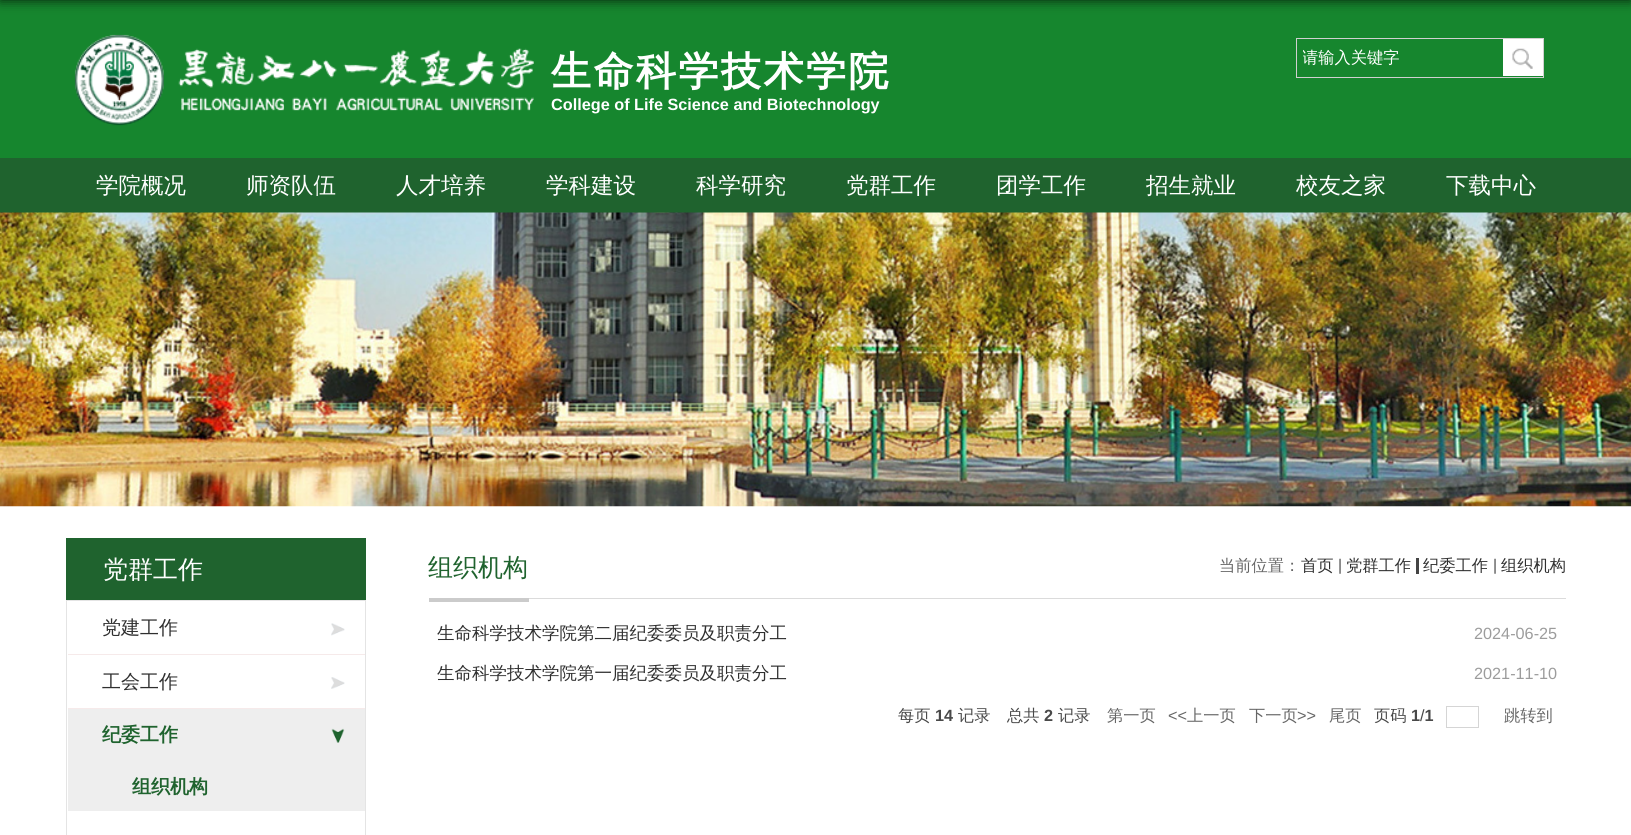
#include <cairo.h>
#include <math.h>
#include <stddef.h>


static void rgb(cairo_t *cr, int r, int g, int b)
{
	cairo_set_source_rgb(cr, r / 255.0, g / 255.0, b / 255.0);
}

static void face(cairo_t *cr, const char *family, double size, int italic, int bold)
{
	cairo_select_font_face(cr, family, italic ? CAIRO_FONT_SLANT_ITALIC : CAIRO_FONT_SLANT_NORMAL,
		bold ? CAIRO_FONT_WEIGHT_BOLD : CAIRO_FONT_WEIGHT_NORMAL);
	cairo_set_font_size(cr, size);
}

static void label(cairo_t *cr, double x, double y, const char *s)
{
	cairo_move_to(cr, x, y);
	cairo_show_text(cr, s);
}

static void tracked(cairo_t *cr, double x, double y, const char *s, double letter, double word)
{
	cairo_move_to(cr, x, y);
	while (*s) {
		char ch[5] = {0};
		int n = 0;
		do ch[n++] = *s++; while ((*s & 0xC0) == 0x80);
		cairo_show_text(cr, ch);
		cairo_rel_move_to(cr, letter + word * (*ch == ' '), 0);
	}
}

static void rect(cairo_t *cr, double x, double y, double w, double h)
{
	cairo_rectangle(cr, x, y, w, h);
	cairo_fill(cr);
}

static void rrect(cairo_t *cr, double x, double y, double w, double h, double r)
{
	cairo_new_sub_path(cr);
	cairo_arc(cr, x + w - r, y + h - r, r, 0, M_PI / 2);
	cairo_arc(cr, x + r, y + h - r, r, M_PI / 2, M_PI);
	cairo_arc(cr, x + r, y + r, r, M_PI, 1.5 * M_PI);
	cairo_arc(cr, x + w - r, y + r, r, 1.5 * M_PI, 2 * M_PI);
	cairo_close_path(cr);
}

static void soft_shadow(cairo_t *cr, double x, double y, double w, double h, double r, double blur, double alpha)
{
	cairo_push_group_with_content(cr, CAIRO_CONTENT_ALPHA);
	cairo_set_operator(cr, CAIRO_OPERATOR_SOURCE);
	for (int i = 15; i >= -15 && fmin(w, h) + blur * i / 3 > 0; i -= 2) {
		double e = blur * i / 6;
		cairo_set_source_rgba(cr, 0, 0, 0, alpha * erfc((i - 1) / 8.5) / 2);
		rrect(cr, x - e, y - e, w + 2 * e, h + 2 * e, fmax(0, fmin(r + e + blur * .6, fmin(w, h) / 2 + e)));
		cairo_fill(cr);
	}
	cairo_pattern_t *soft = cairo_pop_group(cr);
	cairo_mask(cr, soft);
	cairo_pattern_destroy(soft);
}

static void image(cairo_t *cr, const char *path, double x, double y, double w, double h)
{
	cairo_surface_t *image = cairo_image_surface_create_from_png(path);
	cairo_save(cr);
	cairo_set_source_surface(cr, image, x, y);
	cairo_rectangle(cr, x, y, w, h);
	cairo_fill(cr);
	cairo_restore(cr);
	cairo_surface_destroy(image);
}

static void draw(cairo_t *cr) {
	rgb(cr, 255, 255, 255);
	cairo_paint(cr);
	rgb(cr, 22, 134, 46);
	rect(cr, 0, 0, 1631, 158);
	rgb(cr, 0, 0, 0);
	soft_shadow(cr, 0, -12, 1631, 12, 0, 6, 0.8);
	image(cr, "image0.png", 74, 34, 460, 92);
	face(cr, "WenQuanYi Zen Hei", 40, 0, 1);
	rgb(cr, 255, 255, 255);
	tracked(cr, 551, 85, "生命科学技术学院", 2.5, 0);
	face(cr, "Liberation Sans", 16.25, 0, 1);
	label(cr, 551, 110, "College of Life Science and Biotechnology");
	cairo_rectangle(cr, 1296.5, 38.5, 247, 39);
	rgb(cr, 208, 208, 208);
	cairo_set_line_width(cr, 1);
	cairo_stroke(cr);
	cairo_save(cr);
	cairo_rectangle(cr, 1303, 45, 200, 25);
	cairo_clip(cr);
	face(cr, "WenQuanYi Zen Hei Medium", 16.25, 0, 0);
	rgb(cr, 255, 255, 255);
	label(cr, 1302, 63, "请输入关键字");
	cairo_restore(cr);
	rgb(cr, 255, 255, 255);
	rect(cr, 1503, 39, 40, 37);
	image(cr, "image1.png", 1512, 48, 21, 21);
	rgb(cr, 31, 99, 46);
	rect(cr, 0, 158, 1631, 55);
	face(cr, "WenQuanYi Zen Hei Medium", 22.5, 0, 0);
	rgb(cr, 255, 255, 255);
	label(cr, 96, 193, "学院概况");
	label(cr, 246, 193, "师资队伍");
	label(cr, 396, 193, "人才培养");
	label(cr, 546, 193, "学科建设");
	label(cr, 696, 193, "科学研究");
	label(cr, 846, 193, "党群工作");
	label(cr, 996, 193, "团学工作");
	label(cr, 1146, 193, "招生就业");
	label(cr, 1296, 193, "校友之家");
	label(cr, 1446, 193, "下载中心");
	image(cr, "image2.png", 0, 212, 1631, 295);
	rgb(cr, 31, 99, 46);
	rect(cr, 66, 538, 300, 62);
	face(cr, "WenQuanYi Zen Hei Medium", 25, 0, 0);
	rgb(cr, 255, 255, 255);
	label(cr, 103, 578, "党群工作");
	cairo_rectangle(cr, 66.5, 600.5, 299, 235);
	rgb(cr, 228, 228, 228);
	cairo_stroke(cr);
	image(cr, "image3.png", 331, 623, 14, 13);
	rgb(cr, 246, 234, 234);
	rect(cr, 68, 654, 297, 1);
	face(cr, "WenQuanYi Zen Hei Medium", 19, 0, 0);
	rgb(cr, 47, 47, 47);
	label(cr, 102, 634, "党建工作");
	image(cr, "image4.png", 331, 677, 14, 12);
	rgb(cr, 246, 234, 234);
	rect(cr, 68, 708, 297, 1);
	rgb(cr, 47, 47, 47);
	label(cr, 102, 688, "工会工作");
	rgb(cr, 238, 238, 238);
	rect(cr, 68, 709, 297, 102);
	image(cr, "image5.png", 331, 728, 14, 15);
	face(cr, "WenQuanYi Zen Hei", 19, 0, 1);
	rgb(cr, 31, 99, 46);
	label(cr, 102, 741, "纪委工作");
	label(cr, 132, 793, "组织机构");
	rgb(cr, 219, 219, 219);
	rect(cr, 529, 598, 1037, 1);
	rgb(cr, 203, 203, 203);
	rect(cr, 429, 598, 100, 4);
	face(cr, "WenQuanYi Zen Hei Medium", 25, 0, 0);
	rgb(cr, 31, 99, 46);
	label(cr, 428, 576, "组织机构");
	face(cr, "WenQuanYi Zen Hei Medium", 16.25, 0, 0);
	rgb(cr, 102, 102, 102);
	label(cr, 1219, 571, "当前位置：");
	rgb(cr, 47, 47, 47);
	label(cr, 1301, 571, "首页");
	image(cr, "image6.png", 1339, 558, 2, 16);
	label(cr, 1346, 571, "党群工作");
	rgb(cr, 68, 68, 68);
	rect(cr, 1416, 558, 3, 16);
	rgb(cr, 47, 47, 47);
	label(cr, 1423, 571, "纪委工作");
	image(cr, "image6.png", 1494, 558, 2, 16);
	label(cr, 1501, 571, "组织机构");
	face(cr, "WenQuanYi Zen Hei Medium", 17.5, 0, 0);
	label(cr, 437, 639, "生命科学技术学院第二届纪委委员及职责分工");
	face(cr, "Liberation Sans", 16.25, 0, 0);
	rgb(cr, 156, 156, 156);
	label(cr, 1474, 639, "2024-06-25");
	face(cr, "WenQuanYi Zen Hei Medium", 17.5, 0, 0);
	rgb(cr, 47, 47, 47);
	label(cr, 437, 679, "生命科学技术学院第一届纪委委员及职责分工");
	face(cr, "Liberation Sans", 16.25, 0, 0);
	rgb(cr, 156, 156, 156);
	label(cr, 1474, 679, "2021-11-10");
	face(cr, "WenQuanYi Zen Hei Medium", 16.25, 0, 0);
	rgb(cr, 73, 73, 73);
	label(cr, 898, 721, "每页");
	face(cr, "Liberation Sans", 16.25, 0, 1);
	label(cr, 935, 721, "14");
	face(cr, "WenQuanYi Zen Hei Medium", 16.25, 0, 0);
	label(cr, 958, 721, "记录");
	label(cr, 1007, 721, "总共");
	face(cr, "Liberation Sans", 16.25, 0, 1);
	label(cr, 1044, 721, "2");
	face(cr, "WenQuanYi Zen Hei Medium", 16.25, 0, 0);
	label(cr, 1058, 721, "记录");
	rgb(cr, 102, 102, 102);
	label(cr, 1107, 721, "第一页");
	face(cr, "Liberation Sans", 16.25, 0, 0);
	label(cr, 1168, 721, "<<");
	face(cr, "WenQuanYi Zen Hei Medium", 16.25, 0, 0);
	label(cr, 1187, 721, "上一页");
	label(cr, 1249, 721, "下一页");
	face(cr, "Liberation Sans", 16.25, 0, 0);
	label(cr, 1297, 721, ">>");
	face(cr, "WenQuanYi Zen Hei Medium", 16.25, 0, 0);
	label(cr, 1329, 721, "尾页");
	rgb(cr, 73, 73, 73);
	label(cr, 1374, 721, "页码");
	face(cr, "Liberation Sans", 16.25, 0, 1);
	label(cr, 1411, 721, "1 1");
	face(cr, "Liberation Sans", 16.25, 0, 0);
	label(cr, 1420, 721, "/");
	cairo_rectangle(cr, 1446.5, 706.5, 32, 21);
	rgb(cr, 213, 213, 213);
	cairo_stroke(cr);
	face(cr, "WenQuanYi Zen Hei Medium", 16.25, 0, 0);
	rgb(cr, 102, 102, 102);
	label(cr, 1504, 721, "跳转到");
}

int main(void) {
	cairo_surface_t *surface = cairo_image_surface_create(CAIRO_FORMAT_RGB24, 1631, 835);
	cairo_t *cr = cairo_create(surface);
	cairo_font_options_t *options = cairo_font_options_create();
	cairo_font_options_set_hint_metrics(options, CAIRO_HINT_METRICS_OFF);
	cairo_font_options_set_hint_style(options, CAIRO_HINT_STYLE_NONE);
	cairo_set_font_options(cr, options);
	cairo_set_miter_limit(cr, 4);
	draw(cr);
	cairo_surface_write_to_png(surface, "render.png");
	cairo_font_options_destroy(options);
	cairo_destroy(cr);
	cairo_surface_destroy(surface);
	return 0;
}
